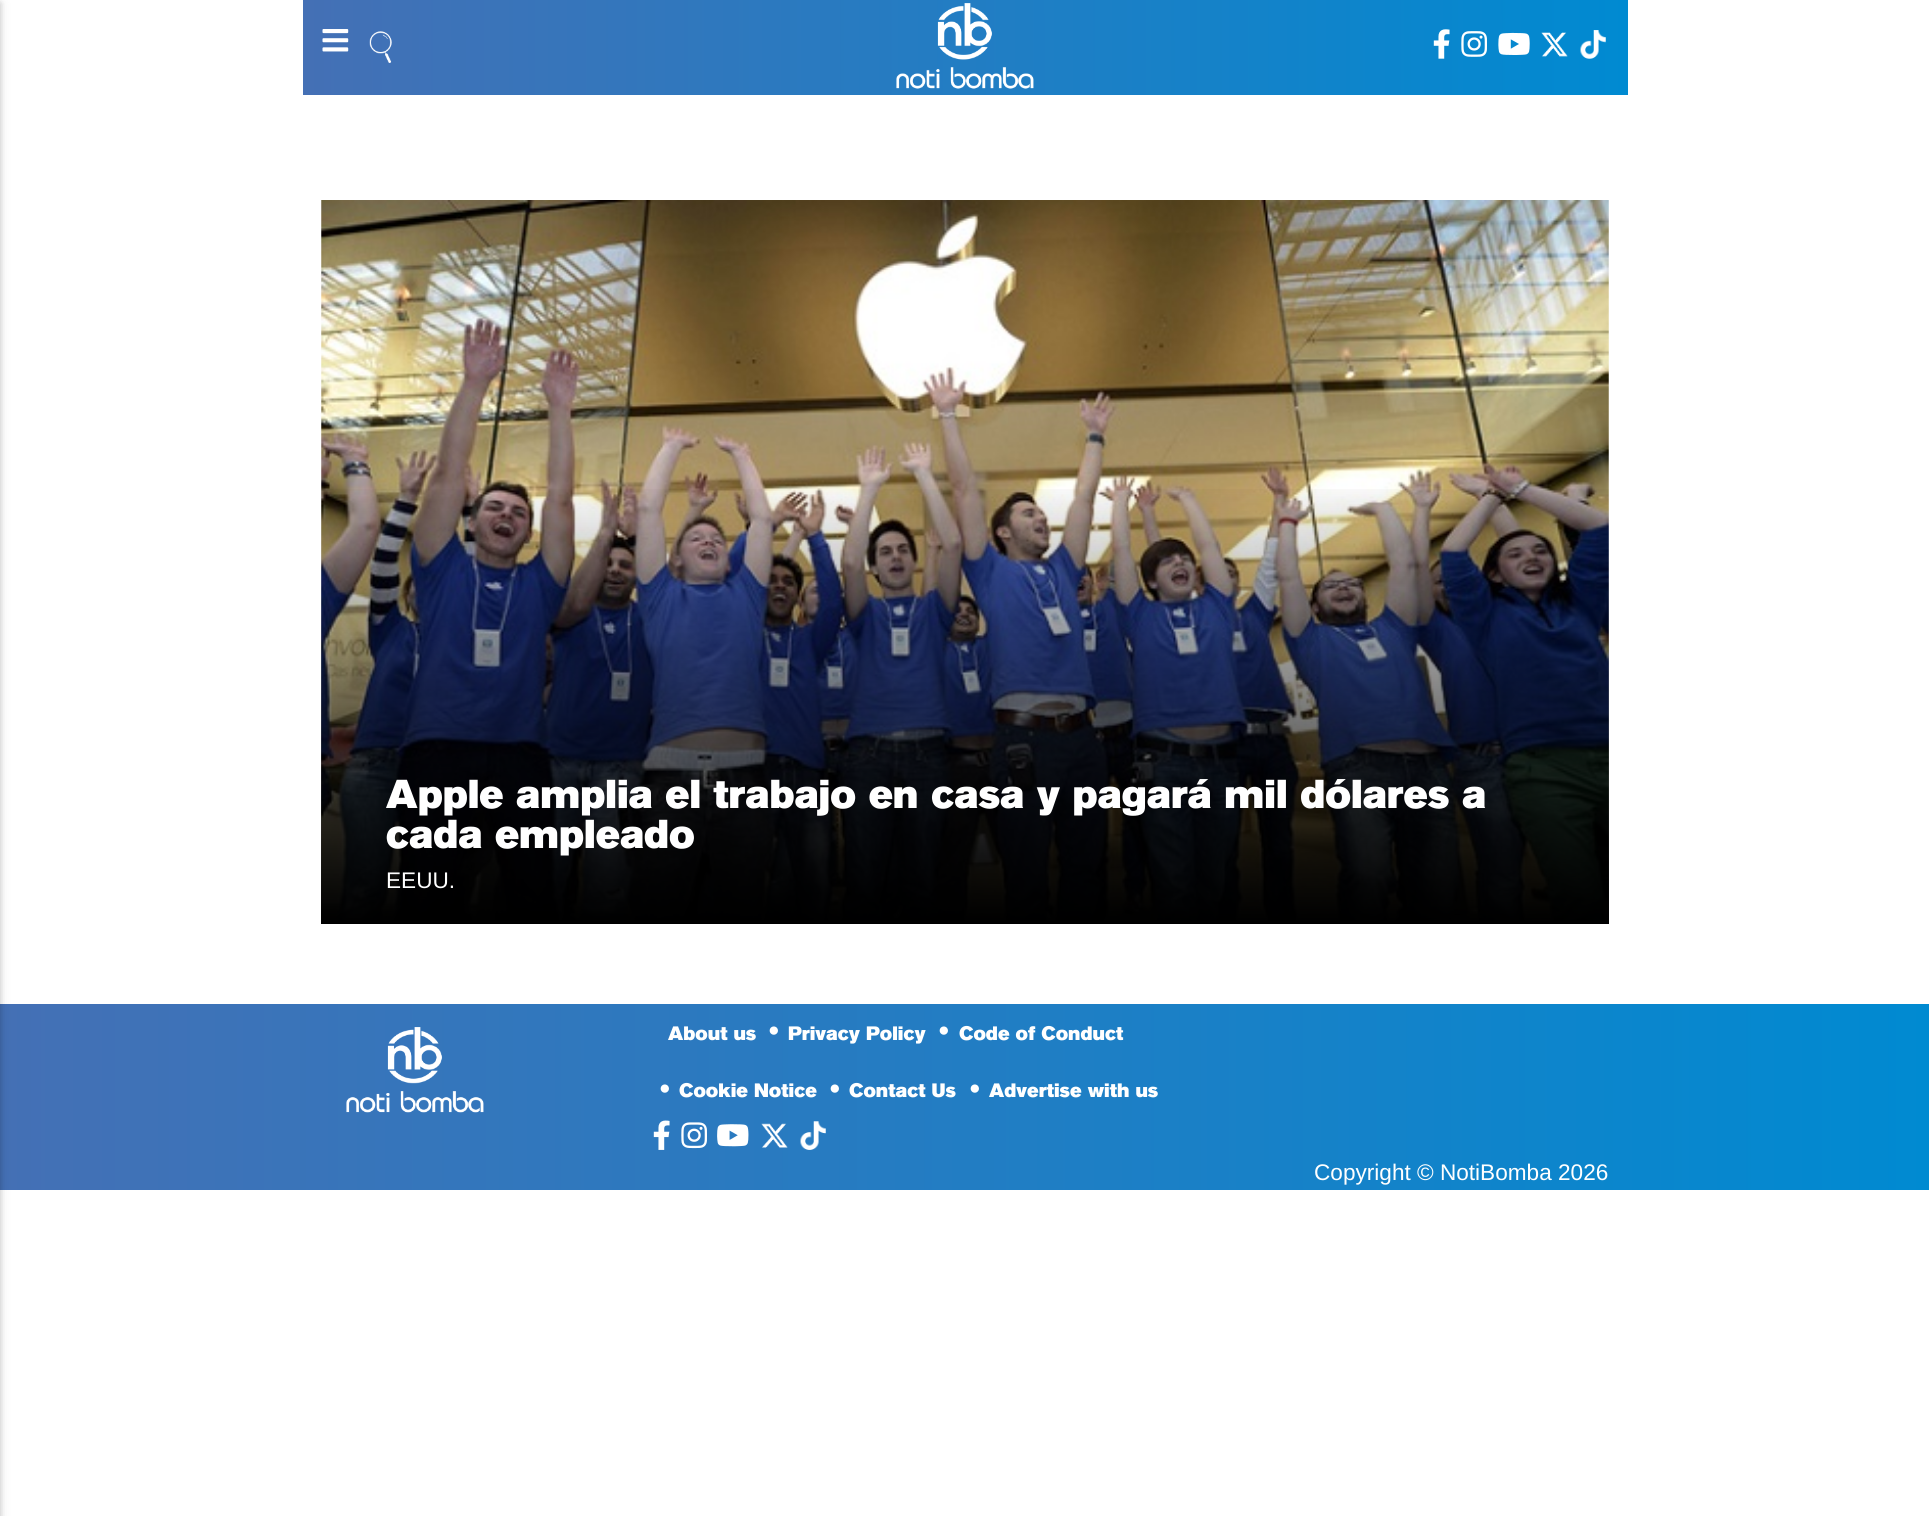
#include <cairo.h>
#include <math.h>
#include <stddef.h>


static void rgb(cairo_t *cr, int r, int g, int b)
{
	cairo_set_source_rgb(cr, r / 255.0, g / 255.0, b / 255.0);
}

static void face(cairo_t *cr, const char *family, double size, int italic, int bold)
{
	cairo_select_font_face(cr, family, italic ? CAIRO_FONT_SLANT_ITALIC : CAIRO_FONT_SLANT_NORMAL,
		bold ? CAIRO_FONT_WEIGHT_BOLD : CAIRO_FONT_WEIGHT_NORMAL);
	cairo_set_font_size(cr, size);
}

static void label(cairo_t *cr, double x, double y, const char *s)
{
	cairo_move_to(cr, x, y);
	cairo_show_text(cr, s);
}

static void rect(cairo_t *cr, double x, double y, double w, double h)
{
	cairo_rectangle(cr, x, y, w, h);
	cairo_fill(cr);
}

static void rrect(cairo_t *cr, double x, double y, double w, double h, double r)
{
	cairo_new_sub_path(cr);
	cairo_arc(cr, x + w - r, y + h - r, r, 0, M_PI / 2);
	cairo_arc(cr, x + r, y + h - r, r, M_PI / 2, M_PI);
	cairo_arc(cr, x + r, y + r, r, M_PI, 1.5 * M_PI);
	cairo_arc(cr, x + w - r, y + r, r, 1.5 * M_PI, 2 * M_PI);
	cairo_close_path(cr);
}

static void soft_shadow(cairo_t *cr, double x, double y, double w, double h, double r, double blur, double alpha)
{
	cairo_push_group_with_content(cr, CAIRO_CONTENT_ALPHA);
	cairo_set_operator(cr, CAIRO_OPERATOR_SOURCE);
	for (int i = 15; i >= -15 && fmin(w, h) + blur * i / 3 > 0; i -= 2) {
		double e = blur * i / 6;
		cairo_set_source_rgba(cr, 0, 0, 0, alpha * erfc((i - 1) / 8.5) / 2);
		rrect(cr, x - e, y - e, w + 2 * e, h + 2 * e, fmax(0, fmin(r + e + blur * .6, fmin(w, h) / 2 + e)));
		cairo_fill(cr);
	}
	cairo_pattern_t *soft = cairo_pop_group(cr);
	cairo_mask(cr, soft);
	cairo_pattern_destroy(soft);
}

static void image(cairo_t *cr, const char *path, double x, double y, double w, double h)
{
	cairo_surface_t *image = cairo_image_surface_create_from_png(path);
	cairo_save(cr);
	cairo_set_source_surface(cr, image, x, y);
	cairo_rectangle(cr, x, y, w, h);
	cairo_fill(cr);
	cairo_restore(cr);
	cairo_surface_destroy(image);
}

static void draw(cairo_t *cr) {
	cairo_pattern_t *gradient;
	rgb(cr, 255, 255, 255);
	cairo_paint(cr);
	gradient = cairo_pattern_create_linear(0, 1097, 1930, 1097);
	cairo_pattern_add_color_stop_rgba(gradient, 0, 0.267, 0.439, 0.71, 1);
	cairo_pattern_add_color_stop_rgba(gradient, 1, 0, 0.541, 0.82, 1);
	cairo_set_source(cr, gradient);
	cairo_pattern_destroy(gradient);
	rect(cr, 0, 1004, 1929, 186);
	rgb(cr, 0, 0, 0);
	soft_shadow(cr, -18, 3, 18, 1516, 0, 6, 0.12);
	soft_shadow(cr, -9, 3, 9, 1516, 0, 3, 0.16);
	gradient = cairo_pattern_create_linear(303, 48, 1628, 47);
	cairo_pattern_add_color_stop_rgba(gradient, 0, 0.267, 0.439, 0.71, 1);
	cairo_pattern_add_color_stop_rgba(gradient, 1, 0, 0.541, 0.82, 1);
	cairo_set_source(cr, gradient);
	cairo_pattern_destroy(gradient);
	rect(cr, 303, 0, 1325, 95);
	image(cr, "image0.png", 322, 29, 27, 23);
	image(cr, "image1.png", 369, 31, 23, 32);
	image(cr, "image2.png", 896, 3, 138, 86);
	image(cr, "image3.png", 1433, 29, 17, 30);
	image(cr, "image4.png", 1461, 31, 26, 26);
	image(cr, "image5.png", 1498, 32, 32, 23);
	image(cr, "image6.png", 1541, 32, 27, 25);
	image(cr, "image7.png", 1580, 30, 26, 29);
	image(cr, "image8.png", 321, 200, 1288, 721);
	gradient = cairo_pattern_create_linear(965, 924, 965, 479);
	cairo_pattern_add_color_stop_rgba(gradient, 0, 0, 0, 0, 1);
	cairo_pattern_add_color_stop_rgba(gradient, 1, 0, 0, 0, 0);
	cairo_set_source(cr, gradient);
	cairo_pattern_destroy(gradient);
	rect(cr, 321, 489, 1288, 435);
	face(cr, "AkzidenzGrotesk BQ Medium", 40, 0, 0);
	rgb(cr, 255, 255, 255);
	label(cr, 386, 808, "Apple amplia el trabajo en casa y pagará mil dólares a");
	label(cr, 386, 848, "cada empleado");
	face(cr, "Liberation Sans", 22.6, 0, 0);
	label(cr, 386, 888, "EEUU.");
	image(cr, "image9.png", 346, 1027, 138, 86);
	face(cr, "AkzidenzGrotesk BQ Medium", 19.25, 0, 0);
	label(cr, 668, 1040, "About us");
	face(cr, "Liberation Serif", 19.25, 0, 0);
	label(cr, 768, 1036, "●");
	face(cr, "AkzidenzGrotesk BQ Medium", 19.25, 0, 0);
	label(cr, 788, 1040, "Privacy Policy");
	face(cr, "Liberation Serif", 19.25, 0, 0);
	label(cr, 938, 1036, "●");
	face(cr, "AkzidenzGrotesk BQ Medium", 19.25, 0, 0);
	label(cr, 959, 1040, "Code of Conduct");
	face(cr, "Liberation Serif", 19.25, 0, 0);
	label(cr, 659, 1094, "●");
	face(cr, "AkzidenzGrotesk BQ Medium", 19.25, 0, 0);
	label(cr, 679, 1097, "Cookie Notice");
	face(cr, "Liberation Serif", 19.25, 0, 0);
	label(cr, 829, 1094, "●");
	face(cr, "AkzidenzGrotesk BQ Medium", 19.25, 0, 0);
	label(cr, 849, 1097, "Contact Us");
	face(cr, "Liberation Serif", 19.25, 0, 0);
	label(cr, 969, 1094, "●");
	face(cr, "AkzidenzGrotesk BQ Medium", 19.25, 0, 0);
	label(cr, 989, 1097, "Advertise with us");
	image(cr, "image10.png", 653, 1120, 17, 30);
	image(cr, "image11.png", 681, 1122, 26, 27);
	image(cr, "image12.png", 717, 1124, 32, 23);
	image(cr, "image13.png", 761, 1123, 27, 25);
	image(cr, "image14.png", 800, 1121, 26, 29);
	face(cr, "Liberation Sans", 22.6, 0, 0);
	label(cr, 1314, 1180, "Copyright © NotiBomba 2026");
}

int main(void) {
	cairo_surface_t *surface = cairo_image_surface_create(CAIRO_FORMAT_RGB24, 1929, 1516);
	cairo_t *cr = cairo_create(surface);
	cairo_font_options_t *options = cairo_font_options_create();
	cairo_font_options_set_hint_metrics(options, CAIRO_HINT_METRICS_OFF);
	cairo_font_options_set_hint_style(options, CAIRO_HINT_STYLE_NONE);
	cairo_set_font_options(cr, options);
	cairo_set_miter_limit(cr, 4);
	draw(cr);
	cairo_surface_write_to_png(surface, "render.png");
	cairo_font_options_destroy(options);
	cairo_destroy(cr);
	cairo_surface_destroy(surface);
	return 0;
}
